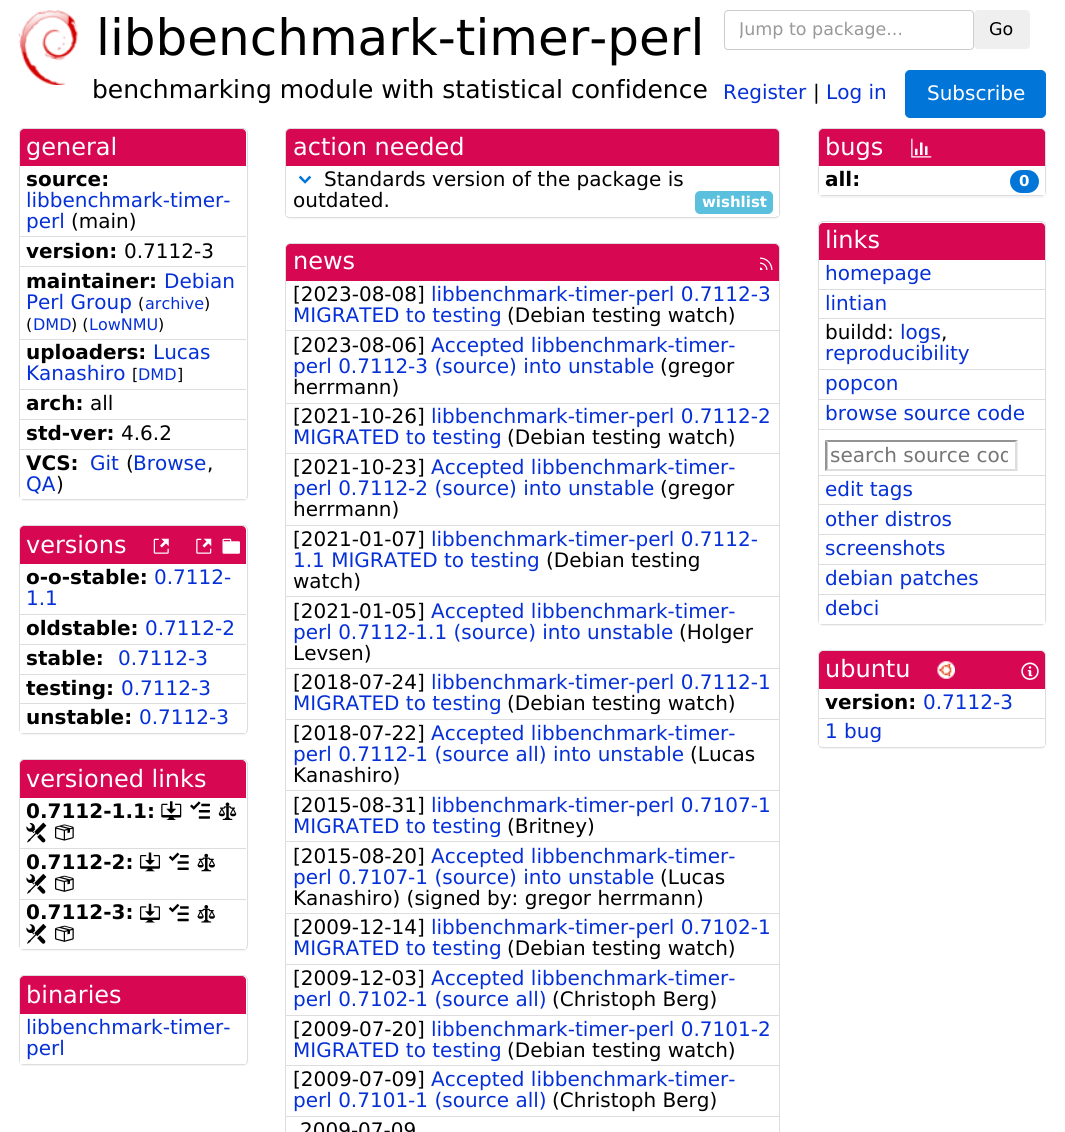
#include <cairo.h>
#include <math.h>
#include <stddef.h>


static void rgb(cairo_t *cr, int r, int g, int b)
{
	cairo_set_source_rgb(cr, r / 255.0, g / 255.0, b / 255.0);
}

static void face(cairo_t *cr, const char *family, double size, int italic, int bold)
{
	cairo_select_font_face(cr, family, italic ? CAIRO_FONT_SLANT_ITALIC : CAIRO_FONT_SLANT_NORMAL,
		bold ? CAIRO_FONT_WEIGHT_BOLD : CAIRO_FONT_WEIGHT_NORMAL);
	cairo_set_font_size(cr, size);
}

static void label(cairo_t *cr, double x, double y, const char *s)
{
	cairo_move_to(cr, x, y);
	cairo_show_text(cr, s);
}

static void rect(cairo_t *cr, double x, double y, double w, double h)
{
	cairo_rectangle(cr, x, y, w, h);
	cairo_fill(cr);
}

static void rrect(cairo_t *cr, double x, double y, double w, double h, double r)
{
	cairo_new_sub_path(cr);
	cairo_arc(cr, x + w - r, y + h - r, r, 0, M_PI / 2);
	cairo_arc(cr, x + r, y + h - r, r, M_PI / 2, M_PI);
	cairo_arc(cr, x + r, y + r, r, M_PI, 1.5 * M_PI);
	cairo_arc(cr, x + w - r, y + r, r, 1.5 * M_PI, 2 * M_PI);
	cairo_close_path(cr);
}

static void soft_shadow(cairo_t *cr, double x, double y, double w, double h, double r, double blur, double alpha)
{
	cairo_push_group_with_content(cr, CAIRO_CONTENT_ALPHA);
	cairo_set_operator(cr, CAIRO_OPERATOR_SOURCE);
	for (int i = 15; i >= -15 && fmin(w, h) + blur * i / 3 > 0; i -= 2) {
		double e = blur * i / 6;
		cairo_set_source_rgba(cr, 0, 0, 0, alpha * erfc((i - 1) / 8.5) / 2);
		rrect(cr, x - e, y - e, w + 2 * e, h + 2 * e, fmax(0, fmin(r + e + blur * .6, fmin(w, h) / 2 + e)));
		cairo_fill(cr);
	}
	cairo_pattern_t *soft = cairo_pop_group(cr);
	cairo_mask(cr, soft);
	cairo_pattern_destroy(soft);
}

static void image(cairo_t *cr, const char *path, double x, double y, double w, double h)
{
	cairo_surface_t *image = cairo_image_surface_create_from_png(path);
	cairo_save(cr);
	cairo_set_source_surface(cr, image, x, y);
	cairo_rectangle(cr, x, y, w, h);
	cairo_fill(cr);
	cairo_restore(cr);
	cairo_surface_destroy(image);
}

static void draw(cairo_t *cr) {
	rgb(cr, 255, 255, 255);
	cairo_paint(cr);
	image(cr, "image0.png", 18, 10, 60, 75);
	face(cr, "DejaVu Sans", 50, 0, 0);
	rgb(cr, 0, 0, 0);
	label(cr, 96, 55, "libbenchmark-timer-perl");
	face(cr, "DejaVu Sans", 25, 0, 0);
	label(cr, 92, 98, "benchmarking module with statistical confidence");
	rrect(cr, 724.5, 10.5, 249, 39, 3.5);
	rgb(cr, 204, 204, 204);
	cairo_set_line_width(cr, 1);
	cairo_stroke(cr);
	cairo_save(cr);
	cairo_rectangle(cr, 740, 19, 213, 20);
	cairo_clip(cr);
	face(cr, "DejaVu Sans", 17.5, 0, 0);
	rgb(cr, 153, 153, 153);
	label(cr, 739, 35, "Jump to package...");
	cairo_restore(cr);
	rgb(cr, 239, 239, 239);
	rrect(cr, 974, 10, 56, 39, 4);
	cairo_fill(cr);
	face(cr, "DejaVu Sans", 17.5, 0, 0);
	rgb(cr, 0, 0, 0);
	label(cr, 989, 35, "Go");
	face(cr, "DejaVu Sans", 20, 0, 0);
	rgb(cr, 5, 48, 215);
	label(cr, 723, 99, "Register");
	rgb(cr, 0, 0, 0);
	label(cr, 813, 99, "|");
	rgb(cr, 5, 48, 215);
	label(cr, 826, 99, "Log in");
	rgb(cr, 2, 117, 216);
	rrect(cr, 905.5, 70.5, 140, 47, 4.5);
	cairo_fill_preserve(cr);
	cairo_stroke(cr);
	rgb(cr, 255, 255, 255);
	label(cr, 927, 100, "Subscribe");
	rgb(cr, 0, 0, 0);
	soft_shadow(cr, 19, 129, 229, 372, 5, 0.5, 0.05);
	rgb(cr, 255, 255, 255);
	rrect(cr, 19.5, 128.5, 228, 371, 4.5);
	cairo_fill_preserve(cr);
	rgb(cr, 221, 221, 221);
	cairo_stroke(cr);
	rgb(cr, 215, 7, 81);
	cairo_new_path(cr);
	cairo_move_to(cr, 24, 129);
	cairo_line_to(cr, 242, 129);
	cairo_curve_to(cr, 244, 129, 246, 131, 246, 133);
	cairo_line_to(cr, 246, 168);
	cairo_line_to(cr, 20, 168);
	cairo_line_to(cr, 20, 133);
	cairo_curve_to(cr, 20, 131, 22, 129, 24, 129);
	cairo_close_path(cr);
	cairo_fill(cr);
	face(cr, "DejaVu Sans", 24, 0, 0);
	rgb(cr, 255, 255, 255);
	label(cr, 26, 155, "general");
	rect(cr, 20, 166, 226, 333);
	rgb(cr, 221, 221, 221);
	rect(cr, 20, 236, 226, 1);
	face(cr, "DejaVu Sans", 20, 0, 1);
	rgb(cr, 0, 0, 0);
	label(cr, 26, 186, "source:");
	face(cr, "DejaVu Sans", 20, 0, 0);
	rgb(cr, 5, 48, 215);
	label(cr, 26, 207, "libbenchmark-timer-");
	label(cr, 26, 228, "perl");
	rgb(cr, 0, 0, 0);
	label(cr, 71, 228, "(main)");
	rgb(cr, 221, 221, 221);
	rect(cr, 20, 266, 226, 1);
	face(cr, "DejaVu Sans", 20, 0, 1);
	rgb(cr, 0, 0, 0);
	label(cr, 26, 258, "version:");
	face(cr, "DejaVu Sans", 20, 0, 0);
	label(cr, 124, 258, "0.7112-3");
	rgb(cr, 221, 221, 221);
	rect(cr, 20, 339, 226, 1);
	face(cr, "DejaVu Sans", 20, 0, 1);
	rgb(cr, 0, 0, 0);
	label(cr, 26, 288, "maintainer:");
	face(cr, "DejaVu Sans", 20, 0, 0);
	rgb(cr, 5, 48, 215);
	label(cr, 164, 288, "Debian");
	label(cr, 26, 309, "Perl Group");
	face(cr, "DejaVu Sans", 16, 0, 0);
	rgb(cr, 0, 0, 0);
	label(cr, 138, 309, "(");
	rgb(cr, 5, 48, 215);
	label(cr, 145, 309, "archive");
	rgb(cr, 0, 0, 0);
	label(cr, 204, 309, ")");
	label(cr, 26, 330, "(");
	rgb(cr, 5, 48, 215);
	label(cr, 33, 330, "DMD");
	rgb(cr, 0, 0, 0);
	label(cr, 71, 330, ") (");
	rgb(cr, 5, 48, 215);
	label(cr, 89, 330, "LowNMU");
	rgb(cr, 0, 0, 0);
	label(cr, 158, 330, ")");
	rgb(cr, 221, 221, 221);
	rect(cr, 20, 389, 226, 1);
	face(cr, "DejaVu Sans", 20, 0, 1);
	rgb(cr, 0, 0, 0);
	label(cr, 26, 359, "uploaders:");
	face(cr, "DejaVu Sans", 20, 0, 0);
	rgb(cr, 5, 48, 215);
	label(cr, 153, 359, "Lucas");
	label(cr, 26, 380, "Kanashiro");
	face(cr, "DejaVu Sans", 16, 0, 0);
	rgb(cr, 0, 0, 0);
	label(cr, 132, 380, "[");
	rgb(cr, 5, 48, 215);
	label(cr, 138, 380, "DMD");
	rgb(cr, 0, 0, 0);
	label(cr, 177, 380, "]");
	rgb(cr, 221, 221, 221);
	rect(cr, 20, 419, 226, 1);
	face(cr, "DejaVu Sans", 20, 0, 1);
	rgb(cr, 0, 0, 0);
	label(cr, 26, 410, "arch:");
	face(cr, "DejaVu Sans", 20, 0, 0);
	label(cr, 90, 410, "all");
	face(cr, "DejaVu Sans", 20, 0, 1);
	label(cr, 26, 440, "std-ver:");
	face(cr, "DejaVu Sans", 20, 0, 0);
	label(cr, 121, 440, "4.6.2");
	rgb(cr, 221, 221, 221);
	rect(cr, 20, 449, 226, 1);
	face(cr, "DejaVu Sans", 20, 0, 1);
	rgb(cr, 0, 0, 0);
	label(cr, 26, 470, "VCS:");
	face(cr, "DejaVu Sans", 20, 0, 0);
	rgb(cr, 5, 48, 215);
	label(cr, 90, 470, "Git");
	rgb(cr, 0, 0, 0);
	label(cr, 126, 470, "(");
	rgb(cr, 5, 48, 215);
	label(cr, 133, 470, "Browse");
	rgb(cr, 0, 0, 0);
	label(cr, 207, 470, ",");
	rgb(cr, 5, 48, 215);
	label(cr, 26, 491, "QA");
	rgb(cr, 0, 0, 0);
	label(cr, 56, 491, ")");
	rgb(cr, 0, 0, 0);
	soft_shadow(cr, 19, 526, 229, 209, 5, 0.5, 0.05);
	rgb(cr, 255, 255, 255);
	rrect(cr, 19.5, 525.5, 228, 208, 4.5);
	cairo_fill_preserve(cr);
	rgb(cr, 221, 221, 221);
	cairo_stroke(cr);
	rgb(cr, 215, 7, 81);
	cairo_new_path(cr);
	cairo_move_to(cr, 24, 526);
	cairo_line_to(cr, 242, 526);
	cairo_curve_to(cr, 244, 526, 246, 528, 246, 530);
	cairo_line_to(cr, 246, 565);
	cairo_line_to(cr, 20, 565);
	cairo_line_to(cr, 20, 530);
	cairo_curve_to(cr, 20, 528, 22, 526, 24, 526);
	cairo_close_path(cr);
	cairo_fill(cr);
	face(cr, "DejaVu Sans", 24, 0, 0);
	rgb(cr, 255, 255, 255);
	label(cr, 26, 553, "versions");
	image(cr, "image1.png", 153, 538, 16, 16);
	image(cr, "image2.png", 196, 538, 16, 16);
	image(cr, "image3.png", 222, 538, 18, 16);
	rect(cr, 20, 564, 226, 169);
	rgb(cr, 221, 221, 221);
	rect(cr, 20, 614, 226, 1);
	face(cr, "DejaVu Sans", 20, 0, 1);
	rgb(cr, 0, 0, 0);
	label(cr, 26, 584, "o-o-stable:");
	face(cr, "DejaVu Sans", 20, 0, 0);
	rgb(cr, 5, 48, 215);
	label(cr, 154, 584, "0.7112-");
	label(cr, 26, 605, "1.1");
	rgb(cr, 221, 221, 221);
	rect(cr, 20, 644, 226, 1);
	face(cr, "DejaVu Sans", 20, 0, 1);
	rgb(cr, 0, 0, 0);
	label(cr, 26, 635, "oldstable:");
	face(cr, "DejaVu Sans", 20, 0, 0);
	rgb(cr, 5, 48, 215);
	label(cr, 145, 635, "0.7112-2");
	rgb(cr, 221, 221, 221);
	rect(cr, 20, 674, 226, 1);
	face(cr, "DejaVu Sans", 20, 0, 1);
	rgb(cr, 0, 0, 0);
	label(cr, 26, 665, "stable:");
	face(cr, "DejaVu Sans", 20, 0, 0);
	rgb(cr, 5, 48, 215);
	label(cr, 118, 665, "0.7112-3");
	face(cr, "DejaVu Sans", 20, 0, 1);
	rgb(cr, 0, 0, 0);
	label(cr, 26, 695, "testing:");
	face(cr, "DejaVu Sans", 20, 0, 0);
	rgb(cr, 5, 48, 215);
	label(cr, 121, 695, "0.7112-3");
	rgb(cr, 221, 221, 221);
	rect(cr, 20, 703, 226, 1);
	face(cr, "DejaVu Sans", 20, 0, 1);
	rgb(cr, 0, 0, 0);
	label(cr, 26, 724, "unstable:");
	face(cr, "DejaVu Sans", 20, 0, 0);
	rgb(cr, 5, 48, 215);
	label(cr, 139, 724, "0.7112-3");
	rgb(cr, 0, 0, 0);
	soft_shadow(cr, 19, 760, 229, 191, 5, 0.5, 0.05);
	rgb(cr, 255, 255, 255);
	rrect(cr, 19.5, 759.5, 228, 190, 4.5);
	cairo_fill_preserve(cr);
	rgb(cr, 221, 221, 221);
	cairo_stroke(cr);
	rgb(cr, 215, 7, 81);
	cairo_new_path(cr);
	cairo_move_to(cr, 24, 760);
	cairo_line_to(cr, 242, 760);
	cairo_curve_to(cr, 244, 760, 246, 762, 246, 764);
	cairo_line_to(cr, 246, 799);
	cairo_line_to(cr, 20, 799);
	cairo_line_to(cr, 20, 764);
	cairo_curve_to(cr, 20, 762, 22, 760, 24, 760);
	cairo_close_path(cr);
	cairo_fill(cr);
	face(cr, "DejaVu Sans", 24, 0, 0);
	rgb(cr, 255, 255, 255);
	label(cr, 26, 787, "versioned links");
	rect(cr, 20, 798, 226, 151);
	rgb(cr, 221, 221, 221);
	rect(cr, 20, 848, 226, 1);
	face(cr, "DejaVu Sans", 20, 0, 1);
	rgb(cr, 0, 0, 0);
	label(cr, 26, 818, "0.7112-1.1:");
	image(cr, "image4.png", 161, 801, 21, 19);
	image(cr, "image5.png", 190, 801, 20, 18);
	image(cr, "image6.png", 218, 802, 19, 18);
	image(cr, "image7.png", 26, 822, 21, 21);
	image(cr, "image8.png", 55, 824, 19, 17);
	label(cr, 26, 869, "0.7112-2:");
	image(cr, "image9.png", 140, 852, 20, 20);
	image(cr, "image10.png", 168, 852, 21, 18);
	image(cr, "image11.png", 197, 853, 18, 19);
	image(cr, "image12.png", 26, 873, 21, 21);
	image(cr, "image13.png", 55, 875, 19, 17);
	rgb(cr, 221, 221, 221);
	rect(cr, 20, 899, 226, 1);
	rgb(cr, 0, 0, 0);
	label(cr, 26, 919, "0.7112-3:");
	image(cr, "image14.png", 140, 903, 20, 20);
	image(cr, "image15.png", 168, 903, 21, 19);
	image(cr, "image16.png", 197, 905, 18, 18);
	image(cr, "image12.png", 26, 923, 21, 21);
	image(cr, "image13.png", 55, 925, 19, 17);
	rgb(cr, 0, 0, 0);
	soft_shadow(cr, 19, 976, 229, 90, 5, 0.5, 0.05);
	rgb(cr, 255, 255, 255);
	rrect(cr, 19.5, 975.5, 228, 89, 4.5);
	cairo_fill_preserve(cr);
	rgb(cr, 221, 221, 221);
	cairo_stroke(cr);
	rgb(cr, 215, 7, 81);
	cairo_new_path(cr);
	cairo_move_to(cr, 24, 976);
	cairo_line_to(cr, 242, 976);
	cairo_curve_to(cr, 244, 976, 246, 978, 246, 980);
	cairo_line_to(cr, 246, 1015);
	cairo_line_to(cr, 20, 1015);
	cairo_line_to(cr, 20, 980);
	cairo_curve_to(cr, 20, 978, 22, 976, 24, 976);
	cairo_close_path(cr);
	cairo_fill(cr);
	face(cr, "DejaVu Sans", 24, 0, 0);
	rgb(cr, 255, 255, 255);
	label(cr, 26, 1003, "binaries");
	rect(cr, 20, 1014, 226, 50);
	face(cr, "DejaVu Sans", 20, 0, 0);
	rgb(cr, 5, 48, 215);
	label(cr, 26, 1034, "libbenchmark-timer-");
	label(cr, 26, 1055, "perl");
	rgb(cr, 0, 0, 0);
	soft_shadow(cr, 285, 129, 495, 90, 5, 0.5, 0.05);
	rgb(cr, 255, 255, 255);
	rrect(cr, 285.5, 128.5, 494, 89, 4.5);
	cairo_fill_preserve(cr);
	rgb(cr, 221, 221, 221);
	cairo_stroke(cr);
	rgb(cr, 215, 7, 81);
	cairo_new_path(cr);
	cairo_move_to(cr, 290, 129);
	cairo_line_to(cr, 775, 129);
	cairo_curve_to(cr, 777, 129, 779, 131, 779, 133);
	cairo_line_to(cr, 779, 168);
	cairo_line_to(cr, 286, 168);
	cairo_line_to(cr, 286, 133);
	cairo_curve_to(cr, 286, 131, 288, 129, 290, 129);
	cairo_close_path(cr);
	cairo_fill(cr);
	face(cr, "DejaVu Sans", 24, 0, 0);
	rgb(cr, 255, 255, 255);
	label(cr, 293, 155, "action needed");
	rect(cr, 286, 166, 493, 50);
	image(cr, "image17.png", 298, 175, 14, 9);
	face(cr, "DejaVu Sans", 20, 0, 0);
	rgb(cr, 0, 0, 0);
	label(cr, 324, 186, "Standards version of the package is");
	label(cr, 293, 207, "outdated.");
	rgb(cr, 91, 192, 222);
	rrect(cr, 695, 191, 78, 23, 5);
	cairo_fill(cr);
	face(cr, "DejaVu Sans", 15, 0, 1);
	rgb(cr, 255, 255, 255);
	label(cr, 702, 207, "wishlist");
	rrect(cr, 285.5, 243.5, 494, 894, 4.5);
	rgb(cr, 221, 221, 221);
	cairo_stroke(cr);
	rgb(cr, 215, 7, 81);
	cairo_new_path(cr);
	cairo_move_to(cr, 290, 244);
	cairo_line_to(cr, 775, 244);
	cairo_curve_to(cr, 777, 244, 779, 246, 779, 248);
	cairo_line_to(cr, 779, 283);
	cairo_line_to(cr, 286, 283);
	cairo_line_to(cr, 286, 248);
	cairo_curve_to(cr, 286, 246, 288, 244, 290, 244);
	cairo_close_path(cr);
	cairo_fill(cr);
	face(cr, "DejaVu Sans", 24, 0, 0);
	rgb(cr, 255, 255, 255);
	label(cr, 293, 269, "news");
	image(cr, "image18.png", 760, 257, 13, 13);
	rect(cr, 286, 281, 493, 2);
	rgb(cr, 221, 221, 221);
	rect(cr, 286, 330, 493, 1);
	face(cr, "DejaVu Sans", 20, 0, 0);
	rgb(cr, 0, 0, 0);
	label(cr, 293, 301, "[2023-08-08]");
	rgb(cr, 5, 48, 215);
	label(cr, 431, 301, "libbenchmark-timer-perl 0.7112-3");
	label(cr, 293, 322, "MIGRATED to testing");
	rgb(cr, 0, 0, 0);
	label(cr, 507, 322, "(Debian testing watch)");
	rgb(cr, 221, 221, 221);
	rect(cr, 286, 403, 493, 1);
	rgb(cr, 0, 0, 0);
	label(cr, 293, 352, "[2023-08-06]");
	rgb(cr, 5, 48, 215);
	label(cr, 431, 352, "Accepted libbenchmark-timer-");
	label(cr, 293, 373, "perl 0.7112-3 (source) into unstable");
	rgb(cr, 0, 0, 0);
	label(cr, 660, 373, "(gregor");
	label(cr, 293, 394, "herrmann)");
	rgb(cr, 221, 221, 221);
	rect(cr, 286, 453, 493, 1);
	rgb(cr, 0, 0, 0);
	label(cr, 293, 423, "[2021-10-26]");
	rgb(cr, 5, 48, 215);
	label(cr, 431, 423, "libbenchmark-timer-perl 0.7112-2");
	label(cr, 293, 444, "MIGRATED to testing");
	rgb(cr, 0, 0, 0);
	label(cr, 507, 444, "(Debian testing watch)");
	rgb(cr, 221, 221, 221);
	rect(cr, 286, 525, 493, 1);
	rgb(cr, 0, 0, 0);
	label(cr, 293, 474, "[2021-10-23]");
	rgb(cr, 5, 48, 215);
	label(cr, 431, 474, "Accepted libbenchmark-timer-");
	label(cr, 293, 495, "perl 0.7112-2 (source) into unstable");
	rgb(cr, 0, 0, 0);
	label(cr, 660, 495, "(gregor");
	label(cr, 293, 516, "herrmann)");
	rgb(cr, 221, 221, 221);
	rect(cr, 286, 596, 493, 1);
	rgb(cr, 0, 0, 0);
	label(cr, 293, 546, "[2021-01-07]");
	rgb(cr, 5, 48, 215);
	label(cr, 431, 546, "libbenchmark-timer-perl 0.7112-");
	label(cr, 293, 567, "1.1 MIGRATED to testing");
	rgb(cr, 0, 0, 0);
	label(cr, 546, 567, "(Debian testing");
	label(cr, 293, 588, "watch)");
	rgb(cr, 221, 221, 221);
	rect(cr, 286, 668, 493, 1);
	rgb(cr, 0, 0, 0);
	label(cr, 293, 618, "[2021-01-05]");
	rgb(cr, 5, 48, 215);
	label(cr, 431, 618, "Accepted libbenchmark-timer-");
	label(cr, 293, 639, "perl 0.7112-1.1 (source) into unstable");
	rgb(cr, 0, 0, 0);
	label(cr, 679, 639, "(Holger");
	label(cr, 293, 660, "Levsen)");
	rgb(cr, 221, 221, 221);
	rect(cr, 286, 719, 493, 1);
	rgb(cr, 0, 0, 0);
	label(cr, 293, 689, "[2018-07-24]");
	rgb(cr, 5, 48, 215);
	label(cr, 431, 689, "libbenchmark-timer-perl 0.7112-1");
	label(cr, 293, 710, "MIGRATED to testing");
	rgb(cr, 0, 0, 0);
	label(cr, 507, 710, "(Debian testing watch)");
	rgb(cr, 221, 221, 221);
	rect(cr, 286, 790, 493, 1);
	rgb(cr, 0, 0, 0);
	label(cr, 293, 740, "[2018-07-22]");
	rgb(cr, 5, 48, 215);
	label(cr, 431, 740, "Accepted libbenchmark-timer-");
	label(cr, 293, 761, "perl 0.7112-1 (source all) into unstable");
	rgb(cr, 0, 0, 0);
	label(cr, 690, 761, "(Lucas");
	label(cr, 293, 782, "Kanashiro)");
	rgb(cr, 221, 221, 221);
	rect(cr, 286, 841, 493, 1);
	rgb(cr, 0, 0, 0);
	label(cr, 293, 812, "[2015-08-31]");
	rgb(cr, 5, 48, 215);
	label(cr, 431, 812, "libbenchmark-timer-perl 0.7107-1");
	label(cr, 293, 833, "MIGRATED to testing");
	rgb(cr, 0, 0, 0);
	label(cr, 507, 833, "(Britney)");
	rgb(cr, 221, 221, 221);
	rect(cr, 286, 913, 493, 1);
	rgb(cr, 0, 0, 0);
	label(cr, 293, 863, "[2015-08-20]");
	rgb(cr, 5, 48, 215);
	label(cr, 431, 863, "Accepted libbenchmark-timer-");
	label(cr, 293, 884, "perl 0.7107-1 (source) into unstable");
	rgb(cr, 0, 0, 0);
	label(cr, 660, 884, "(Lucas");
	label(cr, 293, 905, "Kanashiro) (signed by: gregor herrmann)");
	rgb(cr, 221, 221, 221);
	rect(cr, 286, 964, 493, 1);
	rgb(cr, 0, 0, 0);
	label(cr, 293, 934, "[2009-12-14]");
	rgb(cr, 5, 48, 215);
	label(cr, 431, 934, "libbenchmark-timer-perl 0.7102-1");
	label(cr, 293, 955, "MIGRATED to testing");
	rgb(cr, 0, 0, 0);
	label(cr, 507, 955, "(Debian testing watch)");
	rgb(cr, 221, 221, 221);
	rect(cr, 286, 1015, 493, 1);
	rgb(cr, 0, 0, 0);
	label(cr, 293, 985, "[2009-12-03]");
	rgb(cr, 5, 48, 215);
	label(cr, 431, 985, "Accepted libbenchmark-timer-");
	label(cr, 293, 1006, "perl 0.7102-1 (source all)");
	rgb(cr, 0, 0, 0);
	label(cr, 552, 1006, "(Christoph Berg)");
	rgb(cr, 221, 221, 221);
	rect(cr, 286, 1065, 493, 1);
	rgb(cr, 0, 0, 0);
	label(cr, 293, 1036, "[2009-07-20]");
	rgb(cr, 5, 48, 215);
	label(cr, 431, 1036, "libbenchmark-timer-perl 0.7101-2");
	label(cr, 293, 1057, "MIGRATED to testing");
	rgb(cr, 0, 0, 0);
	label(cr, 507, 1057, "(Debian testing watch)");
	label(cr, 293, 1086, "[2009-07-09]");
	rgb(cr, 5, 48, 215);
	label(cr, 431, 1086, "Accepted libbenchmark-timer-");
	label(cr, 293, 1107, "perl 0.7101-1 (source all)");
	rgb(cr, 0, 0, 0);
	label(cr, 552, 1107, "(Christoph Berg)");
	rgb(cr, 221, 221, 221);
	rect(cr, 286, 1116, 493, 1);
	rgb(cr, 0, 0, 0);
	label(cr, 300, 1137, "2009-07-09");
	rgb(cr, 0, 0, 0);
	soft_shadow(cr, 818, 129, 228, 69, 5, 0.5, 0.05);
	rrect(cr, 818.5, 128.5, 227, 67, 4.5);
	rgb(cr, 221, 221, 221);
	cairo_stroke(cr);
	rgb(cr, 215, 7, 81);
	cairo_new_path(cr);
	cairo_move_to(cr, 823, 129);
	cairo_line_to(cr, 1041, 129);
	cairo_curve_to(cr, 1043, 129, 1045, 131, 1045, 133);
	cairo_line_to(cr, 1045, 168);
	cairo_line_to(cr, 819, 168);
	cairo_line_to(cr, 819, 133);
	cairo_curve_to(cr, 819, 131, 821, 129, 823, 129);
	cairo_close_path(cr);
	cairo_fill(cr);
	face(cr, "DejaVu Sans", 24, 0, 0);
	rgb(cr, 255, 255, 255);
	label(cr, 825, 155, "bugs");
	image(cr, "image19.png", 911, 138, 21, 20);
	rect(cr, 819, 166, 226, 29);
	face(cr, "DejaVu Sans", 20, 0, 1);
	rgb(cr, 0, 0, 0);
	label(cr, 825, 186, "all:");
	rgb(cr, 2, 117, 216);
	rrect(cr, 1010, 170, 29, 23, 11.5);
	cairo_fill(cr);
	face(cr, "DejaVu Sans", 15, 0, 1);
	rgb(cr, 255, 255, 255);
	label(cr, 1019, 186, "0");
	rgb(cr, 0, 0, 0);
	soft_shadow(cr, 818, 223, 228, 403, 5, 0.5, 0.05);
	rgb(cr, 255, 255, 255);
	rrect(cr, 818.5, 221.5, 227, 403, 4.5);
	cairo_fill_preserve(cr);
	rgb(cr, 221, 221, 221);
	cairo_stroke(cr);
	rgb(cr, 215, 7, 81);
	cairo_new_path(cr);
	cairo_move_to(cr, 823, 223);
	cairo_line_to(cr, 1041, 223);
	cairo_curve_to(cr, 1043, 223, 1045, 225, 1045, 227);
	cairo_line_to(cr, 1045, 261);
	cairo_line_to(cr, 819, 261);
	cairo_line_to(cr, 819, 227);
	cairo_curve_to(cr, 819, 225, 821, 223, 823, 223);
	cairo_close_path(cr);
	cairo_fill(cr);
	face(cr, "DejaVu Sans", 24, 0, 0);
	rgb(cr, 255, 255, 255);
	label(cr, 825, 248, "links");
	rect(cr, 819, 260, 226, 364);
	rgb(cr, 221, 221, 221);
	rect(cr, 819, 289, 226, 1);
	face(cr, "DejaVu Sans", 20, 0, 0);
	rgb(cr, 5, 48, 215);
	label(cr, 825, 280, "homepage");
	rgb(cr, 221, 221, 221);
	rect(cr, 819, 318, 226, 1);
	rgb(cr, 5, 48, 215);
	label(cr, 825, 310, "lintian");
	rgb(cr, 221, 221, 221);
	rect(cr, 819, 369, 226, 1);
	rgb(cr, 0, 0, 0);
	label(cr, 825, 339, "buildd:");
	rgb(cr, 5, 48, 215);
	label(cr, 900, 339, "logs");
	rgb(cr, 0, 0, 0);
	label(cr, 941, 339, ",");
	rgb(cr, 5, 48, 215);
	label(cr, 825, 360, "reproducibility");
	rgb(cr, 221, 221, 221);
	rect(cr, 819, 399, 226, 1);
	rgb(cr, 5, 48, 215);
	label(cr, 825, 390, "popcon");
	rgb(cr, 221, 221, 221);
	rect(cr, 819, 429, 226, 1);
	rgb(cr, 5, 48, 215);
	label(cr, 825, 420, "browse source code");
	rgb(cr, 221, 221, 221);
	rect(cr, 819, 475, 226, 1);
	rgb(cr, 147, 147, 147);
	cairo_new_path(cr);
	cairo_move_to(cr, 825, 440);
	cairo_line_to(cr, 1018, 440);
	cairo_line_to(cr, 1015, 442);
	cairo_line_to(cr, 828, 442);
	cairo_close_path(cr);
	cairo_fill(cr);
	rgb(cr, 221, 221, 221);
	cairo_new_path(cr);
	cairo_move_to(cr, 1017.5, 440);
	cairo_line_to(cr, 1017.5, 471);
	cairo_line_to(cr, 1015, 469);
	cairo_line_to(cr, 1015, 442.5);
	cairo_close_path(cr);
	cairo_fill(cr);
	cairo_new_path(cr);
	cairo_move_to(cr, 1018, 471);
	cairo_line_to(cr, 825, 471);
	cairo_line_to(cr, 828, 469);
	cairo_line_to(cr, 1015, 469);
	cairo_close_path(cr);
	cairo_fill(cr);
	rgb(cr, 147, 147, 147);
	cairo_new_path(cr);
	cairo_move_to(cr, 825, 471);
	cairo_line_to(cr, 825, 440);
	cairo_line_to(cr, 827.5, 442.5);
	cairo_line_to(cr, 827.5, 469);
	cairo_close_path(cr);
	cairo_fill(cr);
	cairo_save(cr);
	cairo_rectangle(cr, 830, 444, 178, 24);
	cairo_clip(cr);
	rgb(cr, 117, 117, 117);
	label(cr, 830, 462, "search source cod");
	cairo_restore(cr);
	rgb(cr, 221, 221, 221);
	rect(cr, 819, 504, 226, 1);
	rgb(cr, 5, 48, 215);
	label(cr, 825, 496, "edit tags");
	rgb(cr, 221, 221, 221);
	rect(cr, 819, 534, 226, 1);
	rgb(cr, 5, 48, 215);
	label(cr, 825, 526, "other distros");
	rgb(cr, 221, 221, 221);
	rect(cr, 819, 564, 226, 1);
	rgb(cr, 5, 48, 215);
	label(cr, 825, 555, "screenshots");
	label(cr, 825, 585, "debian patches");
	rgb(cr, 221, 221, 221);
	rect(cr, 819, 594, 226, 1);
	rgb(cr, 5, 48, 215);
	label(cr, 825, 615, "debci");
	rgb(cr, 0, 0, 0);
	soft_shadow(cr, 818, 651, 228, 98, 5, 0.5, 0.05);
	rgb(cr, 255, 255, 255);
	rrect(cr, 818.5, 650.5, 227, 97, 4.5);
	cairo_fill_preserve(cr);
	rgb(cr, 221, 221, 221);
	cairo_stroke(cr);
	rgb(cr, 215, 7, 81);
	cairo_new_path(cr);
	cairo_move_to(cr, 823, 651);
	cairo_line_to(cr, 1041, 651);
	cairo_curve_to(cr, 1043, 651, 1045, 653, 1045, 655);
	cairo_line_to(cr, 1045, 690);
	cairo_line_to(cr, 819, 690);
	cairo_line_to(cr, 819, 655);
	cairo_curve_to(cr, 819, 653, 821, 651, 823, 651);
	cairo_close_path(cr);
	cairo_fill(cr);
	face(cr, "DejaVu Sans", 24, 0, 0);
	rgb(cr, 255, 255, 255);
	label(cr, 825, 677, "ubuntu");
	image(cr, "image20.png", 937, 661, 18, 18);
	image(cr, "image21.png", 1021, 662, 18, 18);
	rect(cr, 819, 689, 226, 57);
	face(cr, "DejaVu Sans", 20, 0, 1);
	rgb(cr, 0, 0, 0);
	label(cr, 825, 709, "version:");
	face(cr, "DejaVu Sans", 20, 0, 0);
	rgb(cr, 5, 48, 215);
	label(cr, 923, 709, "0.7112-3");
	rgb(cr, 221, 221, 221);
	rect(cr, 819, 718, 226, 1);
	rgb(cr, 5, 48, 215);
	label(cr, 825, 738, "1 bug");
}

int main(void) {
	cairo_surface_t *surface = cairo_image_surface_create(CAIRO_FORMAT_RGB24, 1065, 1132);
	cairo_t *cr = cairo_create(surface);
	cairo_font_options_t *options = cairo_font_options_create();
	cairo_font_options_set_hint_metrics(options, CAIRO_HINT_METRICS_OFF);
	cairo_font_options_set_hint_style(options, CAIRO_HINT_STYLE_NONE);
	cairo_set_font_options(cr, options);
	cairo_set_miter_limit(cr, 4);
	draw(cr);
	cairo_surface_write_to_png(surface, "render.png");
	cairo_font_options_destroy(options);
	cairo_destroy(cr);
	cairo_surface_destroy(surface);
	return 0;
}
